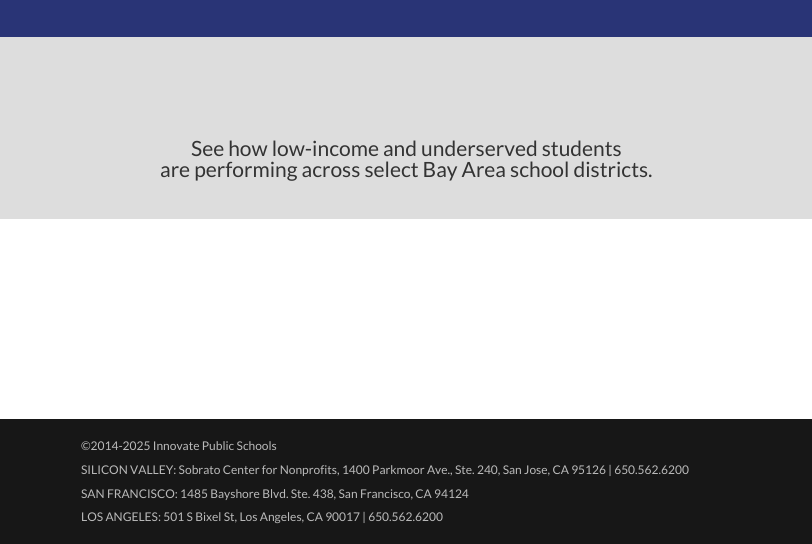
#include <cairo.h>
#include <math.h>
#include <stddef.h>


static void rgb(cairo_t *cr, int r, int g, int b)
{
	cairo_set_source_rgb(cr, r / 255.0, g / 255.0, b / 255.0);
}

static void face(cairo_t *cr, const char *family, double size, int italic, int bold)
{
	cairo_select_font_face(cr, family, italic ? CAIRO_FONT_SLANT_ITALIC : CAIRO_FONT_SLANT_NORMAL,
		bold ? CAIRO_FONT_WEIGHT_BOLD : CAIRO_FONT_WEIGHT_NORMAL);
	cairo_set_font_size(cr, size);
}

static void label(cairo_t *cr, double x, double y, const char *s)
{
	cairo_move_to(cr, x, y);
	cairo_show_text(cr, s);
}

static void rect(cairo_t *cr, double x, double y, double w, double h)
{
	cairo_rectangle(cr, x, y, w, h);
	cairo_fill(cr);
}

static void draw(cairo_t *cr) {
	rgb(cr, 23, 23, 23);
	cairo_paint(cr);
	rgb(cr, 41, 52, 118);
	rect(cr, 0, 0, 812, 37);
	rgb(cr, 221, 221, 221);
	rect(cr, 0, 37, 812, 182);
	face(cr, "Lato", 21, 0, 0);
	rgb(cr, 51, 51, 51);
	label(cr, 191, 156, "See how low-income and underserved students");
	label(cr, 160, 177, "are performing across select Bay Area school districts.");
	rgb(cr, 255, 255, 255);
	rect(cr, 0, 219, 812, 200);
	face(cr, "Lato", 12, 0, 0);
	rgb(cr, 186, 186, 186);
	label(cr, 81, 450, "©2014-2025 Innovate Public Schools");
	label(cr, 81, 474, "SILICON VALLEY: Sobrato Center for Nonprofits, 1400 Parkmoor Ave., Ste. 240, San Jose, CA 95126 | 650.562.6200");
	label(cr, 81, 498, "SAN FRANCISCO: 1485 Bayshore Blvd. Ste. 438, San Francisco, CA 94124");
	label(cr, 81, 521, "LOS ANGELES: 501 S Bixel St, Los Angeles, CA 90017 | 650.562.6200");
}

int main(void) {
	cairo_surface_t *surface = cairo_image_surface_create(CAIRO_FORMAT_RGB24, 812, 544);
	cairo_t *cr = cairo_create(surface);
	cairo_font_options_t *options = cairo_font_options_create();
	cairo_font_options_set_hint_metrics(options, CAIRO_HINT_METRICS_OFF);
	cairo_font_options_set_hint_style(options, CAIRO_HINT_STYLE_NONE);
	cairo_set_font_options(cr, options);
	cairo_set_miter_limit(cr, 4);
	draw(cr);
	cairo_surface_write_to_png(surface, "render.png");
	cairo_font_options_destroy(options);
	cairo_destroy(cr);
	cairo_surface_destroy(surface);
	return 0;
}
